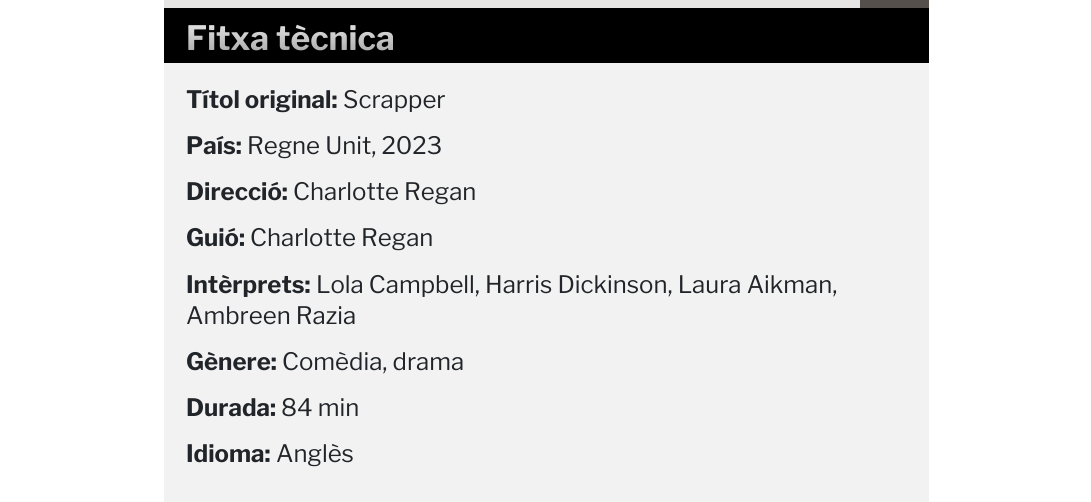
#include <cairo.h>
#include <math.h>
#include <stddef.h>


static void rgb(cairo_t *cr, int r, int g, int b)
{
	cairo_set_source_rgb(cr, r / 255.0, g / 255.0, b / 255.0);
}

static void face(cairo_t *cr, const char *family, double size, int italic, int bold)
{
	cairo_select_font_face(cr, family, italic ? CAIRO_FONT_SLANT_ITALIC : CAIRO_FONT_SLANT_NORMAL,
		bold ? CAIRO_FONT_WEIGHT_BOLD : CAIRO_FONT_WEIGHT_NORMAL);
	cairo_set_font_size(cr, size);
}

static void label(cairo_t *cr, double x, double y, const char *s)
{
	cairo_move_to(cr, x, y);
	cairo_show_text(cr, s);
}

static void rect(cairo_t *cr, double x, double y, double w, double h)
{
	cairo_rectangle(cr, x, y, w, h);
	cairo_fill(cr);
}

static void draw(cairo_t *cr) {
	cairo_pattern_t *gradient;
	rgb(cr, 255, 255, 255);
	cairo_paint(cr);
	rgb(cr, 231, 229, 227);
	rect(cr, 164, 0, 696, 8);
	rgb(cr, 85, 80, 75);
	rect(cr, 860, 0, 69, 8);
	rgb(cr, 243, 242, 242);
	rect(cr, 164, 63, 765, 439);
	rgb(cr, 0, 0, 0);
	rect(cr, 164, 8, 765, 55);
	face(cr, "Libre Franklin", 33.5, 0, 1);
	gradient = cairo_pattern_create_linear(546, 63, 546, 7.9);
	cairo_pattern_add_color_stop_rgba(gradient, 0, 0.6, 0.6, 0.6, 1);
	cairo_pattern_add_color_stop_rgba(gradient, 1, 1, 1, 1, 1);
	cairo_set_source(cr, gradient);
	cairo_pattern_destroy(gradient);
	label(cr, 186, 50, "Fitxa tècnica");
	face(cr, "Libre Franklin", 24, 0, 1);
	rgb(cr, 33, 37, 41);
	label(cr, 186, 108, "Títol original:");
	face(cr, "Libre Franklin", 24, 0, 0);
	label(cr, 343, 108, "Scrapper");
	face(cr, "Libre Franklin", 24, 0, 1);
	label(cr, 186, 154, "País:");
	face(cr, "Libre Franklin", 24, 0, 0);
	label(cr, 247, 154, "Regne Unit, 2023");
	face(cr, "Libre Franklin", 24, 0, 1);
	label(cr, 186, 200, "Direcció:");
	face(cr, "Libre Franklin", 24, 0, 0);
	label(cr, 293, 200, "Charlotte Regan");
	face(cr, "Libre Franklin", 24, 0, 1);
	label(cr, 186, 246, "Guió:");
	face(cr, "Libre Franklin", 24, 0, 0);
	label(cr, 250, 246, "Charlotte Regan");
	face(cr, "Libre Franklin", 24, 0, 1);
	label(cr, 186, 293, "Intèrprets:");
	face(cr, "Libre Franklin", 24, 0, 0);
	label(cr, 316, 293, "Lola Campbell, Harris Dickinson, Laura Aikman,");
	label(cr, 186, 324, "Ambreen Razia");
	face(cr, "Libre Franklin", 24, 0, 1);
	label(cr, 186, 370, "Gènere:");
	face(cr, "Libre Franklin", 24, 0, 0);
	label(cr, 282, 370, "Comèdia, drama");
	face(cr, "Libre Franklin", 24, 0, 1);
	label(cr, 186, 416, "Durada:");
	face(cr, "Libre Franklin", 24, 0, 0);
	label(cr, 281, 416, "84 min");
	face(cr, "Libre Franklin", 24, 0, 1);
	label(cr, 186, 462, "Idioma:");
	face(cr, "Libre Franklin", 24, 0, 0);
	label(cr, 276, 462, "Anglès");
}

int main(void) {
	cairo_surface_t *surface = cairo_image_surface_create(CAIRO_FORMAT_RGB24, 1091, 502);
	cairo_t *cr = cairo_create(surface);
	cairo_font_options_t *options = cairo_font_options_create();
	cairo_font_options_set_hint_metrics(options, CAIRO_HINT_METRICS_OFF);
	cairo_font_options_set_hint_style(options, CAIRO_HINT_STYLE_NONE);
	cairo_set_font_options(cr, options);
	cairo_set_miter_limit(cr, 4);
	draw(cr);
	cairo_surface_write_to_png(surface, "render.png");
	cairo_font_options_destroy(options);
	cairo_destroy(cr);
	cairo_surface_destroy(surface);
	return 0;
}
